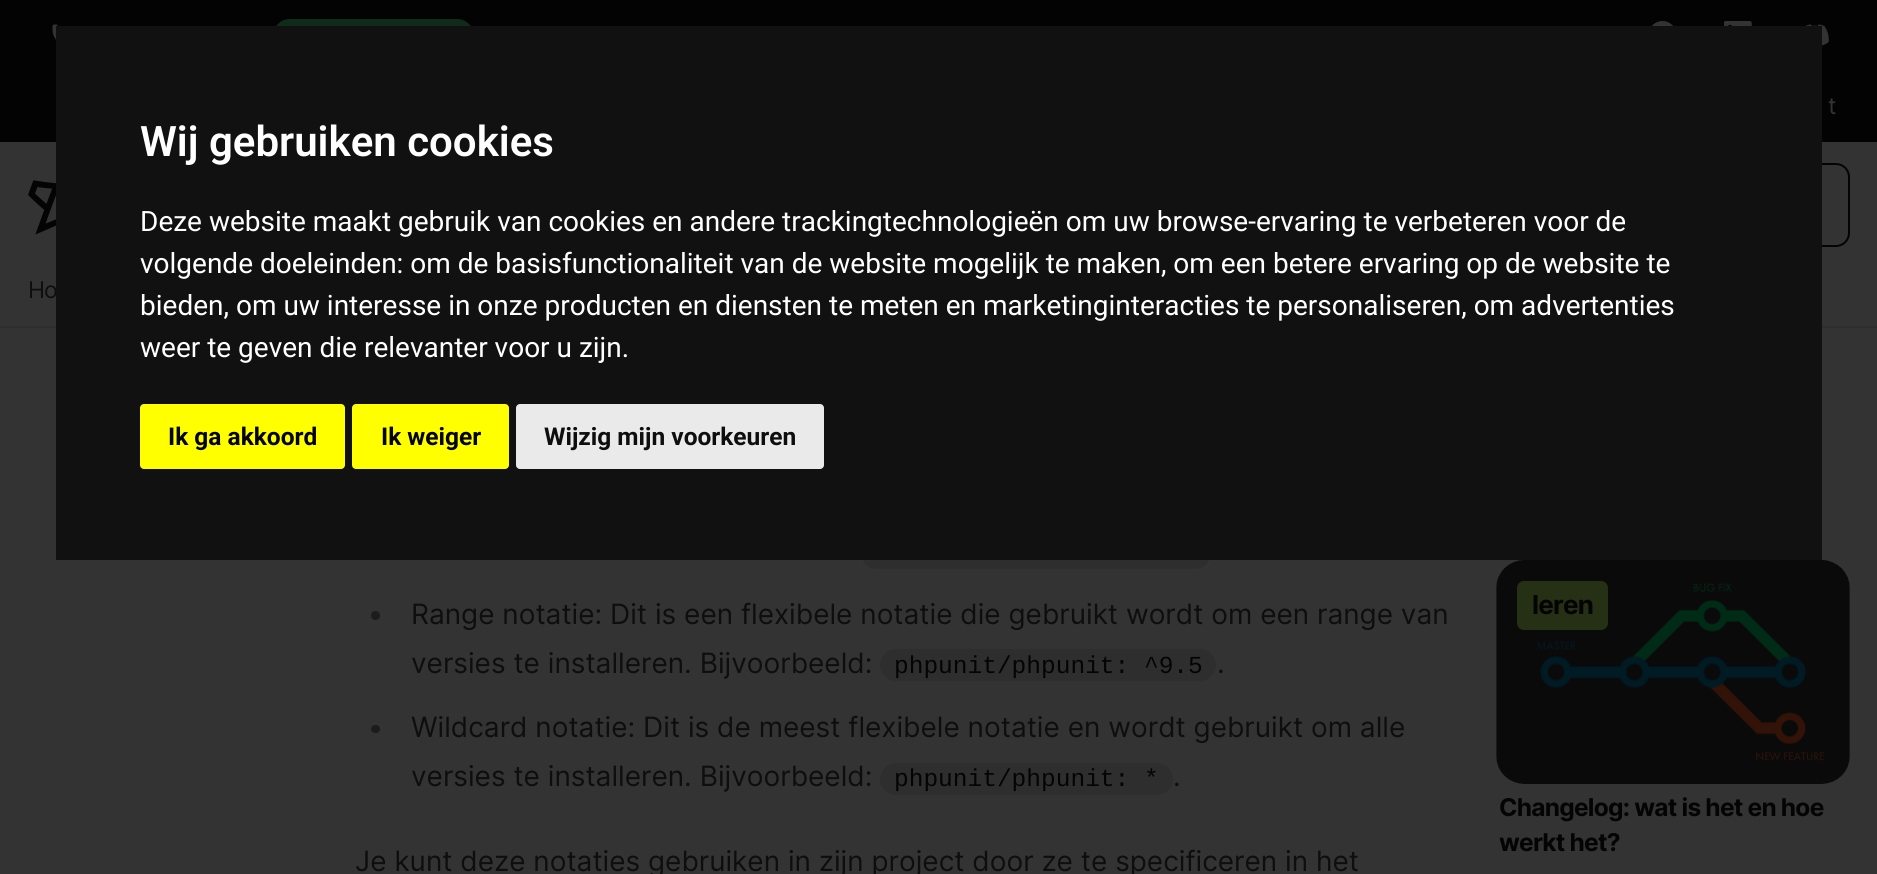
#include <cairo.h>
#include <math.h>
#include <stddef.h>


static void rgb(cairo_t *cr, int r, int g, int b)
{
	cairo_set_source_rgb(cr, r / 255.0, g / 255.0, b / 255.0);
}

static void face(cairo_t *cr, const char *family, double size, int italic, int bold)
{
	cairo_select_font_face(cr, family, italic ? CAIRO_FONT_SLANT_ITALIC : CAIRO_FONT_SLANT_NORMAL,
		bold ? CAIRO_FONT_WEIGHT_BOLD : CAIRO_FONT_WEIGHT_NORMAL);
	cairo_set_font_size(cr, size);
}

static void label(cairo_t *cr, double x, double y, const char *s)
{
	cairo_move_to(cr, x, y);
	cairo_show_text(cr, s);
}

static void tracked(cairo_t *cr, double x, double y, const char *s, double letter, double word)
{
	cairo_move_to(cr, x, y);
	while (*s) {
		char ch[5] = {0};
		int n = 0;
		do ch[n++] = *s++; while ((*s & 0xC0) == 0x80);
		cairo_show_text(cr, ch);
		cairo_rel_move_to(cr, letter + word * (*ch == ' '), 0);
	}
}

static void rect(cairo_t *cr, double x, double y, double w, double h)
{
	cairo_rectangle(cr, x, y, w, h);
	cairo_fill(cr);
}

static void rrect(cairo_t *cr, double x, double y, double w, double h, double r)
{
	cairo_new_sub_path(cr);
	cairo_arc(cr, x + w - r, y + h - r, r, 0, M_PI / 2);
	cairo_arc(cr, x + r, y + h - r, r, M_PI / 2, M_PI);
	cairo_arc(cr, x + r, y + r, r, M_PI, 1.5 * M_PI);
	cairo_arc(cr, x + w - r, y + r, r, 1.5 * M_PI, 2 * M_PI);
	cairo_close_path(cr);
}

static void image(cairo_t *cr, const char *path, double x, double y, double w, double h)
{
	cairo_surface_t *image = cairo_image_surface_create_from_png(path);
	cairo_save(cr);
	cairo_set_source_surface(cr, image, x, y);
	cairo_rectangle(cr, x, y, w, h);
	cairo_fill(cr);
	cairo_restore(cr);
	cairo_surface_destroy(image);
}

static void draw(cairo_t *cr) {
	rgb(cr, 51, 51, 51);
	cairo_paint(cr);
	rgb(cr, 3, 3, 4);
	rect(cr, 0, 0, 1877, 142);
	image(cr, "image0.png", 52, 24, 6, 16);
	rgb(cr, 15, 44, 26);
	rrect(cr, 273, 19, 201, 34, 17);
	cairo_fill(cr);
	image(cr, "image1.png", 1652, 21, 21, 5);
	image(cr, "image2.png", 1724, 21, 28, 5);
	image(cr, "image3.png", 1805, 24, 24, 22);
	face(cr, "Inter", 23, 0, 0);
	rgb(cr, 51, 51, 51);
	tracked(cr, 1828, 114, "t", -1, 0);
	rgb(cr, 45, 46, 46);
	rect(cr, 0, 326, 1877, 2);
	image(cr, "image4.png", 28, 180, 28, 55);
	rrect(cr, 1555, 164, 294, 82, 13);
	rgb(cr, 4, 4, 4);
	cairo_stroke(cr);
	rgb(cr, 14, 14, 14);
	tracked(cr, 28, 298, "Ho", -1, 0);
	rgb(cr, 46, 46, 46);
	rrect(cr, 861, 537, 350, 32, 16);
	cairo_fill(cr);
	rgb(cr, 28, 28, 28);
	cairo_arc(cr, 375.5, 615.5, 4.5, 0, 2 * M_PI);
	cairo_fill(cr);
	face(cr, "Inter", 28, 0, 0);
	rgb(cr, 14, 14, 14);
	label(cr, 411, 624, "Range notatie: Dit is een flexibele notatie die gebruikt wordt om een range van");
	label(cr, 411, 673, "versies te installeren. Bijvoorbeeld:");
	rgb(cr, 46, 46, 46);
	rrect(cr, 880, 649, 336, 32, 16);
	cairo_fill(cr);
	face(cr, "Liberation Mono", 24.5, 0, 0);
	rgb(cr, 4, 4, 4);
	label(cr, 894, 673, "phpunit/phpunit: ^9.5");
	face(cr, "Inter", 28, 0, 0);
	rgb(cr, 14, 14, 14);
	label(cr, 1217, 673, ".");
	rgb(cr, 28, 28, 28);
	rrect(cr, 371, 725, 9, 8, 4);
	cairo_fill(cr);
	rgb(cr, 14, 14, 14);
	label(cr, 411, 737, "Wildcard notatie: Dit is de meest flexibele notatie en wordt gebruikt om alle");
	label(cr, 411, 786, "versies te installeren. Bijvoorbeeld:");
	rgb(cr, 46, 46, 46);
	rrect(cr, 880, 763, 293, 32, 16);
	cairo_fill(cr);
	face(cr, "Liberation Mono", 24.5, 0, 0);
	rgb(cr, 4, 4, 4);
	label(cr, 894, 786, "phpunit/phpunit: *");
	face(cr, "Inter", 28, 0, 0);
	rgb(cr, 14, 14, 14);
	label(cr, 1173, 786, ".");
	label(cr, 355, 871, "Je kunt deze notaties gebruiken in zijn project door ze te specificeren in het");
	rgb(cr, 45, 46, 46);
	rrect(cr, 1496, 560, 354, 224, 28);
	cairo_fill(cr);
	image(cr, "image5.png", 1496, 560, 354, 224);
	rgb(cr, 38, 48, 20);
	rrect(cr, 1517, 581, 91, 49, 7);
	cairo_fill(cr);
	face(cr, "Inter", 26, 0, 1);
	rgb(cr, 4, 4, 4);
	tracked(cr, 1532, 614, "leren", -0.75, 0);
	face(cr, "Inter", 24.5, 0, 1);
	tracked(cr, 1499, 816, "Changelog: wat is het en hoe", -0.75, 0);
	tracked(cr, 1499, 851, "werkt het?", -0.75, 0);
	rgb(cr, 17, 17, 17);
	rect(cr, 56, 26, 1766, 534);
	face(cr, "Roboto SemiBold", 42, 0, 0);
	rgb(cr, 255, 255, 255);
	label(cr, 140, 156, "Wij gebruiken cookies");
	face(cr, "Roboto", 28, 0, 0);
	label(cr, 140, 231, "Deze website maakt gebruik van cookies en andere trackingtechnologieën om uw browse-ervaring te verbeteren voor de");
	label(cr, 140, 273, "volgende doeleinden: om de basisfunctionaliteit van de website mogelijk te maken, om een betere ervaring op de website te");
	label(cr, 140, 315, "bieden, om uw interesse in onze producten en diensten te meten en marketinginteracties te personaliseren, om advertenties");
	label(cr, 140, 357, "weer te geven die relevanter voor u zijn.");
	rgb(cr, 255, 255, 0);
	rrect(cr, 140, 404, 205, 65, 4);
	cairo_fill(cr);
	face(cr, "Roboto", 24.5, 0, 1);
	rgb(cr, 4, 4, 4);
	label(cr, 168, 445, "Ik ga akkoord");
	rgb(cr, 255, 255, 0);
	rrect(cr, 352, 404, 157, 65, 4);
	cairo_fill(cr);
	rgb(cr, 4, 4, 4);
	label(cr, 381, 445, "Ik weiger");
	rgb(cr, 234, 234, 234);
	rrect(cr, 516, 404, 308, 65, 4);
	cairo_fill(cr);
	rgb(cr, 14, 14, 14);
	label(cr, 544, 445, "Wijzig mijn voorkeuren");
}

int main(void) {
	cairo_surface_t *surface = cairo_image_surface_create(CAIRO_FORMAT_RGB24, 1877, 874);
	cairo_t *cr = cairo_create(surface);
	cairo_font_options_t *options = cairo_font_options_create();
	cairo_font_options_set_hint_metrics(options, CAIRO_HINT_METRICS_OFF);
	cairo_font_options_set_hint_style(options, CAIRO_HINT_STYLE_NONE);
	cairo_set_font_options(cr, options);
	cairo_set_miter_limit(cr, 4);
	draw(cr);
	cairo_surface_write_to_png(surface, "render.png");
	cairo_font_options_destroy(options);
	cairo_destroy(cr);
	cairo_surface_destroy(surface);
	return 0;
}
